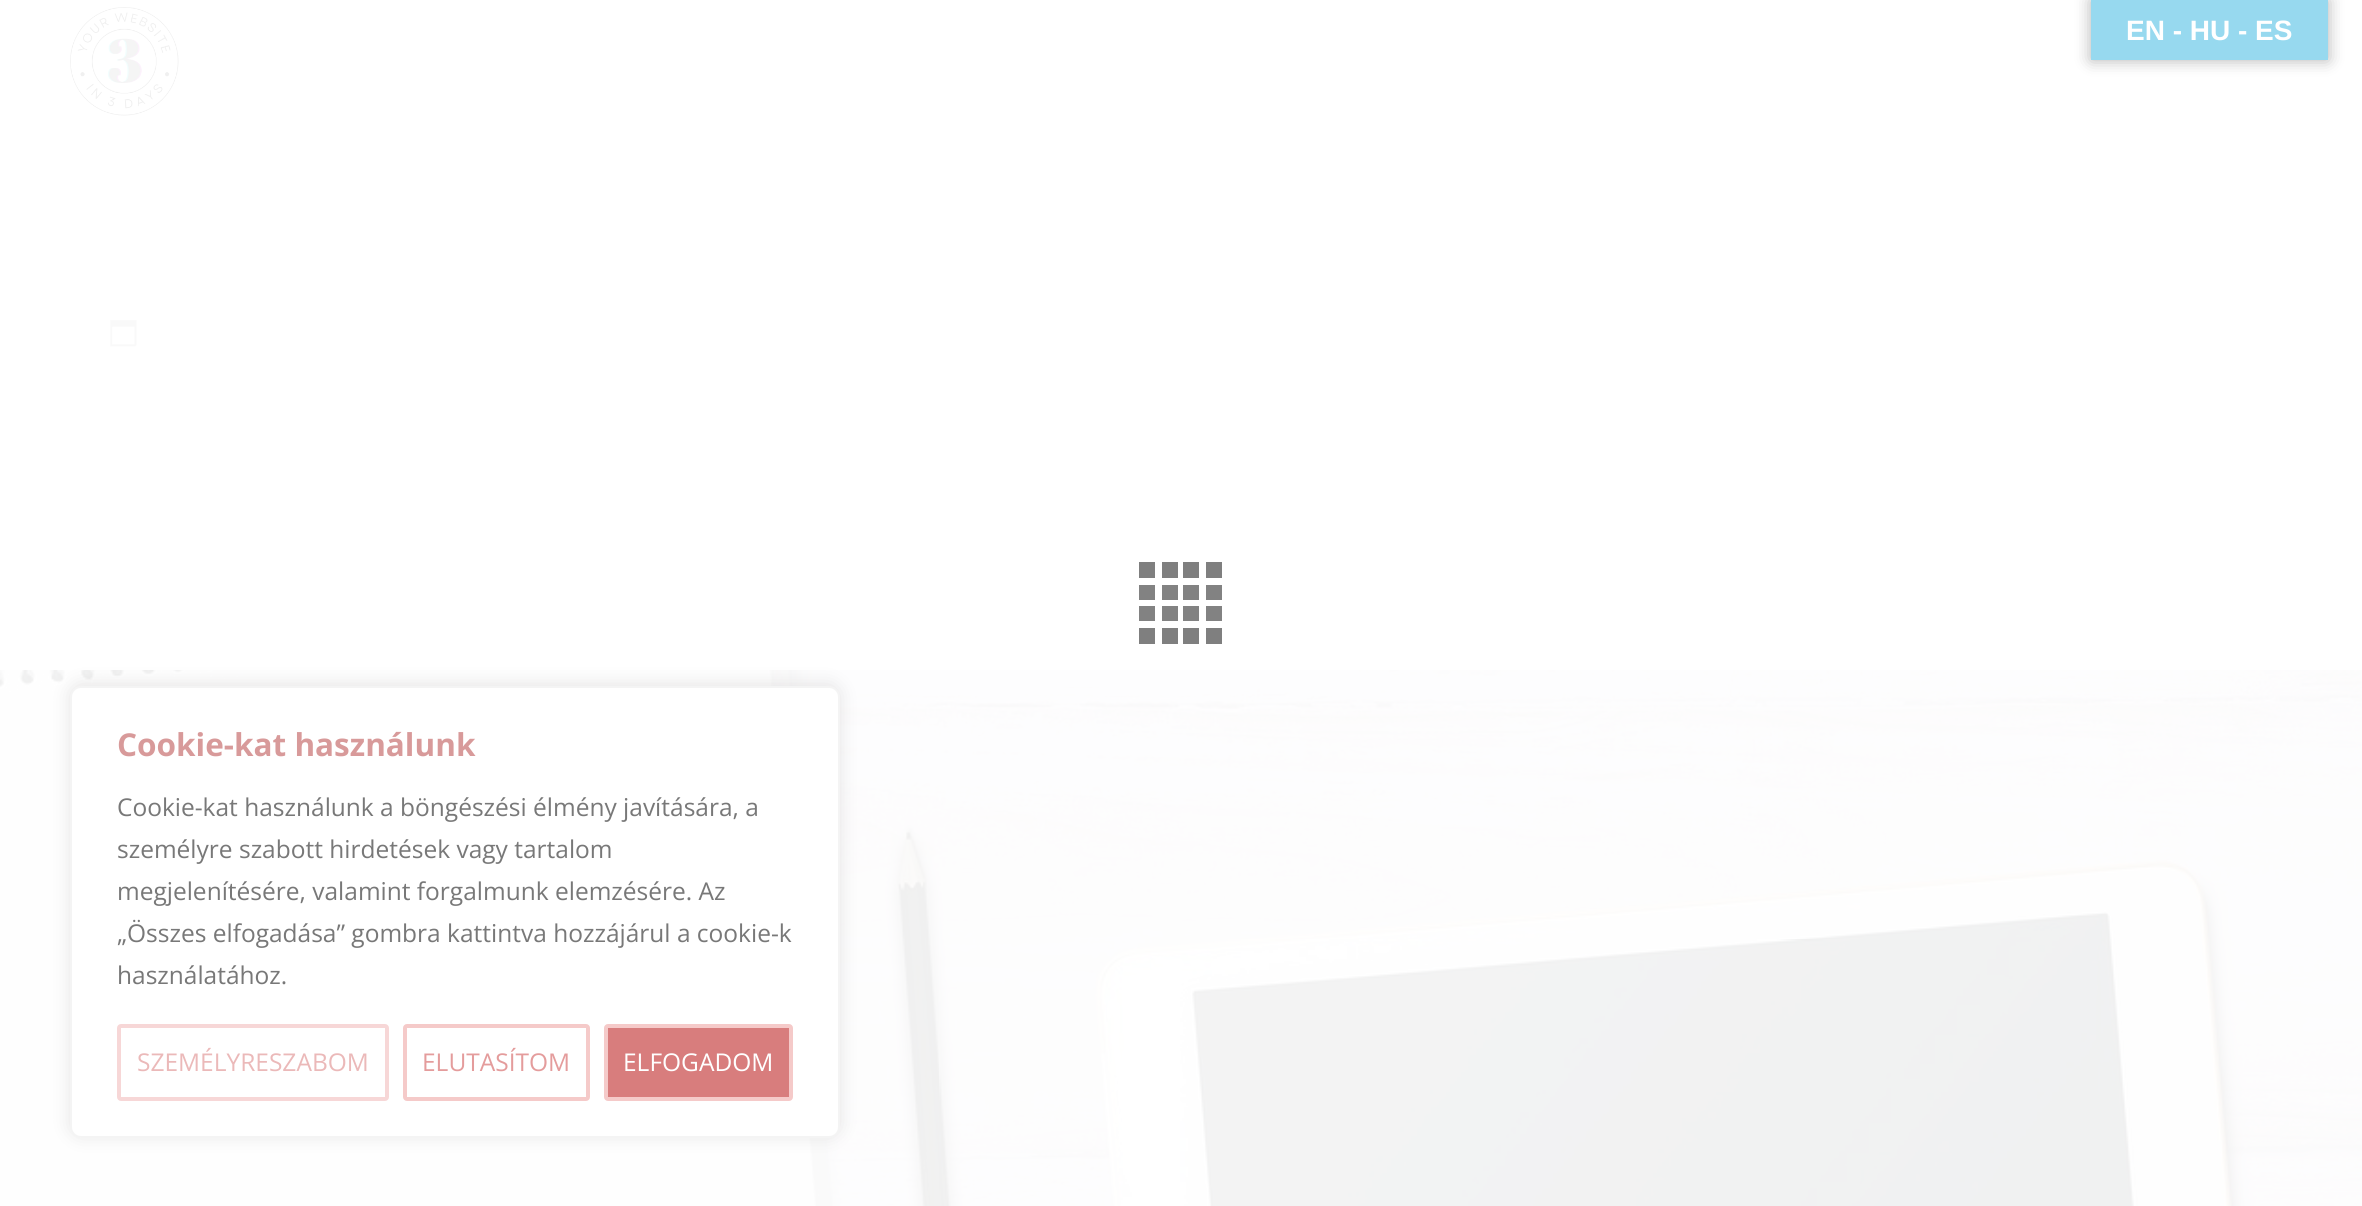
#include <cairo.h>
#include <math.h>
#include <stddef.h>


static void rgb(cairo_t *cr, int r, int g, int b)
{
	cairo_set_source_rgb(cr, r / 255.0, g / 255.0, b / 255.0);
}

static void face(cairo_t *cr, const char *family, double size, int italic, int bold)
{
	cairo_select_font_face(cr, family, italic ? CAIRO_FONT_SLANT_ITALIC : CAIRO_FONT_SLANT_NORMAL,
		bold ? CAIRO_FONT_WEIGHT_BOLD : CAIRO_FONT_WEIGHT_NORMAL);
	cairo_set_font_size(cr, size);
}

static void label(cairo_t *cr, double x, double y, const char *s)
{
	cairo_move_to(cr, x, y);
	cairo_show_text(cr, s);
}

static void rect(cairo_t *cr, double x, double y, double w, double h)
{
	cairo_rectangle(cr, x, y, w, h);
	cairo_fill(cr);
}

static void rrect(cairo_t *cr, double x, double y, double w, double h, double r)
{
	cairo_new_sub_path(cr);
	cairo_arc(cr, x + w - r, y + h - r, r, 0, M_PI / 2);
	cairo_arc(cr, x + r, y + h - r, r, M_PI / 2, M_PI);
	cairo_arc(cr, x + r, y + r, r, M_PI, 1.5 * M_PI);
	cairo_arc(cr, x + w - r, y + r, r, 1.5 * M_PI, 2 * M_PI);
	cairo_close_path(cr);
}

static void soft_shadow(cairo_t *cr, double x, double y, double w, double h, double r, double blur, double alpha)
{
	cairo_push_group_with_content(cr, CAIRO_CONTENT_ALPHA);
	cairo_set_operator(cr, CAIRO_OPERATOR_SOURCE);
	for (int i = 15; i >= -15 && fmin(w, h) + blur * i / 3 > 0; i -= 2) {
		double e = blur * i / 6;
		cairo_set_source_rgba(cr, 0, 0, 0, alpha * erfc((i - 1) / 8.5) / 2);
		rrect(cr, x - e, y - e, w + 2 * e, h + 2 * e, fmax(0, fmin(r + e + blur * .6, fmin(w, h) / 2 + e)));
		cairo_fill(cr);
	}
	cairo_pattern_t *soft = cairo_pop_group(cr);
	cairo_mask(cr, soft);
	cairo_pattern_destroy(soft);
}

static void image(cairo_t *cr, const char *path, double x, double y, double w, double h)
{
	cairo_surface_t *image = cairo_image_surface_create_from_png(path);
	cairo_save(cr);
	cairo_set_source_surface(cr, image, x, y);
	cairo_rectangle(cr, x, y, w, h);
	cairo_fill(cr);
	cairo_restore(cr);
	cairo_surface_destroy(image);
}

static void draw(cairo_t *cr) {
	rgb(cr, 255, 255, 255);
	cairo_paint(cr);
	image(cr, "image0.png", 0, 670, 2362, 536);
	image(cr, "image1.png", 70, 7, 109, 109);
	image(cr, "image2.png", 110, 320, 27, 27);
	rgb(cr, 0, 0, 0);
	soft_shadow(cr, 2091, 0, 237, 60, 0, 8, 0.3);
	rgb(cr, 151, 217, 239);
	rect(cr, 2091, 0, 237, 60);
	face(cr, "Liberation Sans", 28, 0, 1);
	rgb(cr, 255, 255, 255);
	label(cr, 2126, 40, "EN - HU - ES");
	rgb(cr, 127, 127, 127);
	rect(cr, 1139, 562, 16, 16);
	rect(cr, 1162, 562, 16, 16);
	rect(cr, 1183, 562, 16, 16);
	rect(cr, 1206, 562, 16, 16);
	cairo_set_source_rgba(cr, 0.2, 0.2, 0.2, 0.61);
	rect(cr, 1139, 585, 16, 15);
	rect(cr, 1162, 585, 16, 15);
	rect(cr, 1183, 585, 16, 15);
	rect(cr, 1206, 585, 16, 15);
	rect(cr, 1139, 606, 16, 15);
	rect(cr, 1162, 606, 16, 15);
	rect(cr, 1183, 606, 16, 15);
	rect(cr, 1206, 606, 16, 15);
	rgb(cr, 127, 127, 127);
	rect(cr, 1139, 628, 16, 16);
	rect(cr, 1162, 628, 16, 16);
	rect(cr, 1183, 628, 16, 16);
	rect(cr, 1206, 628, 16, 16);
	rgb(cr, 172, 171, 171);
	soft_shadow(cr, 70, 684, 770, 452, 11, 9, 0.3);
	rgb(cr, 255, 255, 255);
	rrect(cr, 71, 687, 768, 450, 10);
	cairo_fill_preserve(cr);
	rgb(cr, 244, 244, 244);
	cairo_stroke(cr);
	face(cr, "Open Sans", 31.5, 0, 1);
	rgb(cr, 216, 154, 154);
	label(cr, 117, 756, "Cookie-kat használunk");
	face(cr, "Open Sans", 24.5, 0, 0);
	rgb(cr, 120, 120, 120);
	label(cr, 117, 816, "Cookie-kat használunk a böngészési élmény javítására, a");
	label(cr, 117, 858, "személyre szabott hirdetések vagy tartalom");
	label(cr, 117, 900, "megjelenítésére, valamint forgalmunk elemzésére. Az");
	label(cr, 117, 942, "„Összes elfogadása” gombra kattintva hozzájárul a cookie-k");
	label(cr, 117, 984, "használatához.");
	rrect(cr, 119, 1026, 268, 73, 2);
	rgb(cr, 247, 215, 215);
	cairo_set_line_width(cr, 4);
	cairo_stroke(cr);
	rgb(cr, 235, 185, 185);
	label(cr, 137, 1071, "SZEMÉLYRESZABOM");
	rrect(cr, 405, 1026, 183, 73, 2);
	rgb(cr, 245, 202, 201);
	cairo_stroke(cr);
	rgb(cr, 228, 156, 156);
	label(cr, 422, 1071, "ELUTASÍTOM");
	rgb(cr, 216, 125, 125);
	rrect(cr, 606, 1026, 185, 73, 2);
	cairo_fill_preserve(cr);
	rgb(cr, 245, 202, 201);
	cairo_stroke(cr);
	rgb(cr, 255, 255, 255);
	label(cr, 623, 1071, "ELFOGADOM");
}

int main(void) {
	cairo_surface_t *surface = cairo_image_surface_create(CAIRO_FORMAT_RGB24, 2362, 1206);
	cairo_t *cr = cairo_create(surface);
	cairo_font_options_t *options = cairo_font_options_create();
	cairo_font_options_set_hint_metrics(options, CAIRO_HINT_METRICS_OFF);
	cairo_font_options_set_hint_style(options, CAIRO_HINT_STYLE_NONE);
	cairo_set_font_options(cr, options);
	cairo_set_miter_limit(cr, 4);
	draw(cr);
	cairo_surface_write_to_png(surface, "render.png");
	cairo_font_options_destroy(options);
	cairo_destroy(cr);
	cairo_surface_destroy(surface);
	return 0;
}
